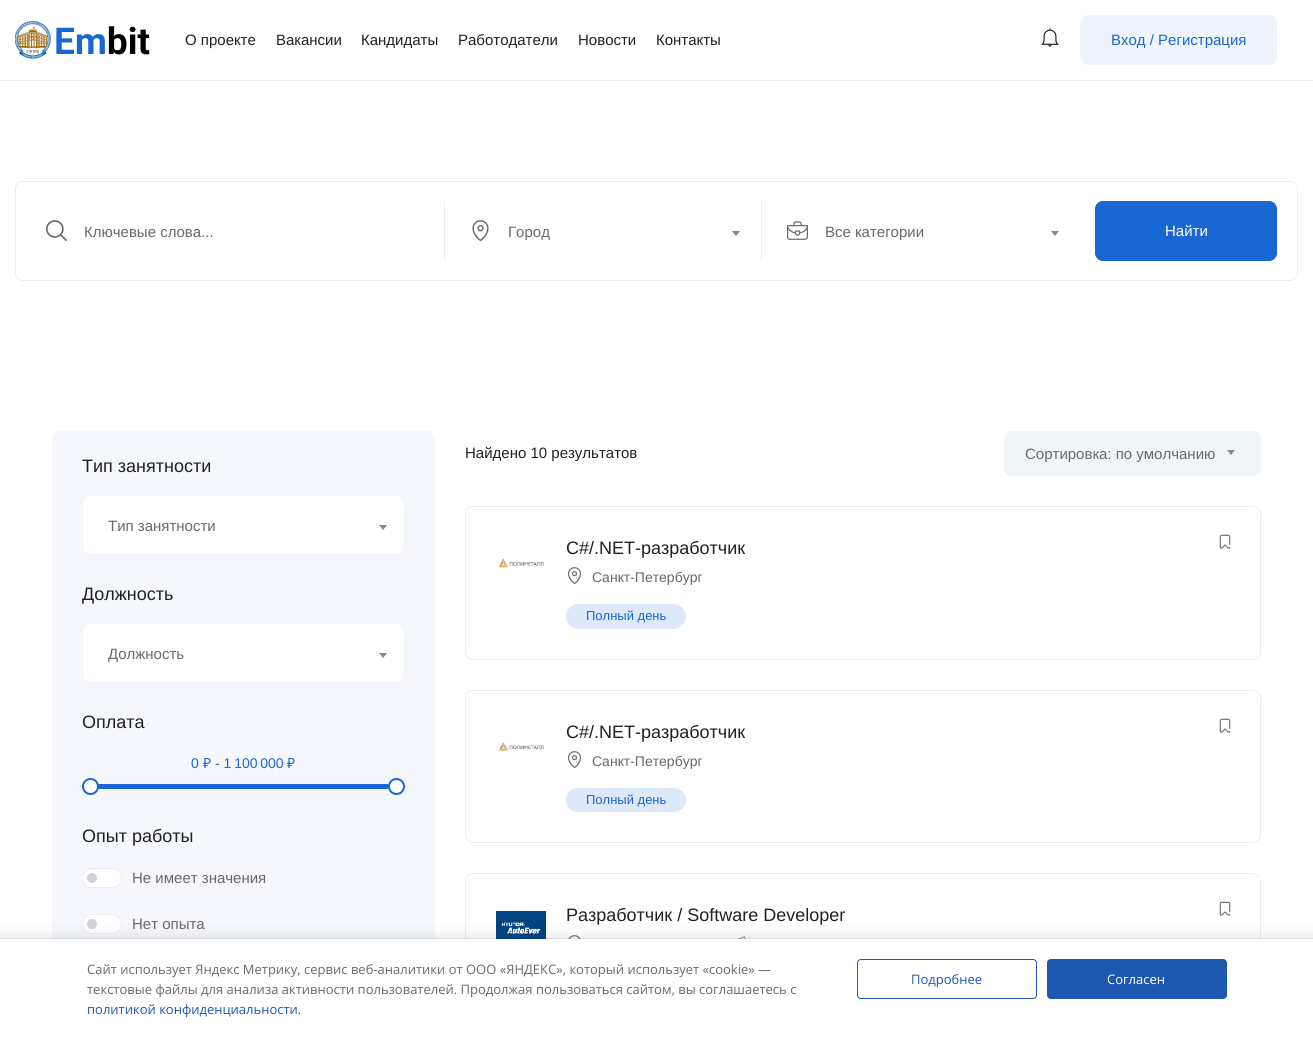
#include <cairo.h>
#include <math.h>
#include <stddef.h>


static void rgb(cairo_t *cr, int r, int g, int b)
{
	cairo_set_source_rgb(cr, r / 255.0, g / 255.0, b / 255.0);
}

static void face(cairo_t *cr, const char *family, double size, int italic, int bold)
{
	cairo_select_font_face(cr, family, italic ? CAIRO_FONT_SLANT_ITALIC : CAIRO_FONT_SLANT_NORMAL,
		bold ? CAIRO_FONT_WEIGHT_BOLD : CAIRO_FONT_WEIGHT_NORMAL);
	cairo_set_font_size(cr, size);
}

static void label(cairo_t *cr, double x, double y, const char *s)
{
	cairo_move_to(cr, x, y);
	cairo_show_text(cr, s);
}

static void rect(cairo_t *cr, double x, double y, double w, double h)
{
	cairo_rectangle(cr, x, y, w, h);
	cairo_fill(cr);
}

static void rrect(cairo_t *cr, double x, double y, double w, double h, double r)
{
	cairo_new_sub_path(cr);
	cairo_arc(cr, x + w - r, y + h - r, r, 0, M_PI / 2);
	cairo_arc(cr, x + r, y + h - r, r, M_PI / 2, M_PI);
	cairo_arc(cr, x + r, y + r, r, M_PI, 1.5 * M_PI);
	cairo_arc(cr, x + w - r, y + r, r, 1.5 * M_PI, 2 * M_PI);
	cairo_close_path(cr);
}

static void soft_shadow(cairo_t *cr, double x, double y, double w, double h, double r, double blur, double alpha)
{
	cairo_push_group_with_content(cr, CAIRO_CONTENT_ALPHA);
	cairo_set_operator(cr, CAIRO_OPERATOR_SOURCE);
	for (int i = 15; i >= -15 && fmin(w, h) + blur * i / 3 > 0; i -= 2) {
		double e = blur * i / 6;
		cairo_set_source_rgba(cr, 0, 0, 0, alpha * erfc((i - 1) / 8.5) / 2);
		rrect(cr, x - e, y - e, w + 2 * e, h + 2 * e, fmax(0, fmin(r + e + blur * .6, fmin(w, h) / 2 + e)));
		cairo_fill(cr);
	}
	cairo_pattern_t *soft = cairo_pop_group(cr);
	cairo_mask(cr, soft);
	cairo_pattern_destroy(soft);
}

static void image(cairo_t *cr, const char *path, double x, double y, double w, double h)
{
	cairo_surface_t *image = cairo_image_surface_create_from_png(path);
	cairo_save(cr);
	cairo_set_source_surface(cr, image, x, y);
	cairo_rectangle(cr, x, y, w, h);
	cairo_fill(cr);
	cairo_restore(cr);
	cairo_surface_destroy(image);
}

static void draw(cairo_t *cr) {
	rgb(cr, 255, 255, 255);
	cairo_paint(cr);
	rgb(cr, 236, 237, 242);
	rect(cr, 0, 80, 1313, 1);
	image(cr, "image0.png", 15, 21, 36, 38);
	image(cr, "image1.png", 56, 26, 94, 29);
	face(cr, "Liberation Sans", 15, 0, 0);
	rgb(cr, 32, 33, 36);
	label(cr, 185, 45, "О проекте");
	label(cr, 276, 45, "Вакансии");
	label(cr, 361, 45, "Кандидаты");
	label(cr, 458, 45, "Работодатели");
	label(cr, 578, 45, "Новости");
	label(cr, 656, 45, "Контакты");
	image(cr, "image2.png", 1041, 28, 18, 19);
	rgb(cr, 239, 244, 252);
	rrect(cr, 1080, 15, 197, 50, 8);
	cairo_fill(cr);
	rgb(cr, 25, 103, 210);
	label(cr, 1111, 45, "Вход / Регистрация");
	rrect(cr, 15.5, 181.5, 1282, 99, 7.5);
	rgb(cr, 236, 237, 242);
	cairo_set_line_width(cr, 1);
	cairo_stroke(cr);
	rect(cr, 444, 201, 1, 60);
	image(cr, "image3.png", 46, 220, 21, 22);
	rgb(cr, 105, 105, 105);
	label(cr, 84, 237, "Ключевые слова...");
	rgb(cr, 236, 237, 242);
	rect(cr, 761, 201, 1, 60);
	image(cr, "image4.png", 472, 220, 17, 22);
	rgb(cr, 105, 105, 105);
	label(cr, 508, 237, "Город");
	rgb(cr, 136, 136, 136);
	cairo_new_path(cr);
	cairo_move_to(cr, 732, 231);
	cairo_line_to(cr, 740, 231);
	cairo_line_to(cr, 736, 236);
	cairo_close_path(cr);
	cairo_fill(cr);
	image(cr, "image5.png", 787, 221, 21, 19);
	rgb(cr, 105, 105, 105);
	label(cr, 825, 237, "Все категории");
	rgb(cr, 136, 136, 136);
	cairo_new_path(cr);
	cairo_move_to(cr, 1051, 231);
	cairo_line_to(cr, 1059, 231);
	cairo_line_to(cr, 1055, 236);
	cairo_close_path(cr);
	cairo_fill(cr);
	rgb(cr, 25, 103, 210);
	rrect(cr, 1095.5, 201.5, 181, 59, 7.5);
	cairo_fill_preserve(cr);
	cairo_stroke(cr);
	rgb(cr, 255, 255, 255);
	label(cr, 1165, 236, "Найти");
	rgb(cr, 245, 247, 252);
	rrect(cr, 52, 431, 383, 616, 8);
	cairo_fill(cr);
	face(cr, "Liberation Sans", 18, 0, 0);
	rgb(cr, 32, 33, 36);
	label(cr, 82, 472, "Тип занятности");
	rgb(cr, 255, 255, 255);
	rrect(cr, 82.5, 495.5, 322, 59, 7.5);
	cairo_fill_preserve(cr);
	rgb(cr, 240, 245, 247);
	cairo_stroke(cr);
	face(cr, "Liberation Sans", 15, 0, 0);
	rgb(cr, 105, 105, 105);
	label(cr, 108, 531, "Тип занятности");
	rgb(cr, 136, 136, 136);
	cairo_new_path(cr);
	cairo_move_to(cr, 379, 525);
	cairo_line_to(cr, 387, 525);
	cairo_line_to(cr, 383, 530);
	cairo_close_path(cr);
	cairo_fill(cr);
	cairo_save(cr);
	cairo_rectangle(cr, 82, 457, 323, 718);
	cairo_clip(cr);
	face(cr, "Liberation Sans", 18, 0, 0);
	rgb(cr, 32, 33, 36);
	label(cr, 82, 600, "Должность");
	cairo_restore(cr);
	rgb(cr, 255, 255, 255);
	rrect(cr, 82.5, 623.5, 322, 59, 7.5);
	cairo_fill_preserve(cr);
	rgb(cr, 240, 245, 247);
	cairo_stroke(cr);
	rgb(cr, 105, 105, 105);
	label(cr, 108, 659, "Должность");
	rgb(cr, 136, 136, 136);
	cairo_new_path(cr);
	cairo_move_to(cr, 379, 653);
	cairo_line_to(cr, 387, 653);
	cairo_line_to(cr, 383, 658);
	cairo_close_path(cr);
	cairo_fill(cr);
	face(cr, "Liberation Sans", 18, 0, 0);
	rgb(cr, 32, 33, 36);
	label(cr, 82, 728, "Оплата");
	face(cr, "Liberation Sans", 14, 0, 0);
	rgb(cr, 25, 103, 210);
	label(cr, 191, 768, "0");
	face(cr, "Noto Sans", 14, 0, 0);
	label(cr, 203, 768, "₽");
	face(cr, "Liberation Sans", 14, 0, 0);
	label(cr, 215, 768, "- 1 100 000");
	face(cr, "Noto Sans", 14, 0, 0);
	label(cr, 287, 768, "₽");
	cairo_new_path(cr);
	cairo_move_to(cr, 84.5, 784);
	cairo_line_to(cr, 388, 784);
	cairo_line_to(cr, 388, 789);
	cairo_line_to(cr, 84.5, 789);
	cairo_curve_to(cr, 83, 789, 82, 788, 82, 786.5);
	cairo_curve_to(cr, 82, 785, 83, 784, 84.5, 784);
	cairo_close_path(cr);
	cairo_fill(cr);
	rgb(cr, 255, 255, 255);
	cairo_arc(cr, 90.5, 786.5, 7.5, 0, 2 * M_PI);
	cairo_fill_preserve(cr);
	rgb(cr, 25, 103, 210);
	cairo_set_line_width(cr, 2);
	cairo_stroke(cr);
	rgb(cr, 255, 255, 255);
	cairo_arc(cr, 396.5, 786.5, 7.5, 0, 2 * M_PI);
	cairo_fill_preserve(cr);
	rgb(cr, 25, 103, 210);
	cairo_stroke(cr);
	face(cr, "Liberation Sans", 18, 0, 0);
	rgb(cr, 32, 33, 36);
	label(cr, 82, 842, "Опыт работы");
	rgb(cr, 255, 255, 255);
	rrect(cr, 82.5, 868.5, 39, 19, 9.5);
	cairo_fill_preserve(cr);
	rgb(cr, 236, 237, 242);
	cairo_set_line_width(cr, 1);
	cairo_stroke(cr);
	face(cr, "Liberation Sans", 15, 0, 0);
	rgb(cr, 105, 105, 105);
	label(cr, 132, 883, "Не имеет значения");
	rgb(cr, 210, 211, 216);
	cairo_new_path(cr);
	cairo_arc(cr, 92, 878, 5, 0, 2 * M_PI);
	cairo_fill(cr);
	rgb(cr, 255, 255, 255);
	rrect(cr, 82.5, 914.5, 39, 19, 9.5);
	cairo_fill_preserve(cr);
	rgb(cr, 236, 237, 242);
	cairo_stroke(cr);
	rgb(cr, 105, 105, 105);
	label(cr, 132, 929, "Нет опыта");
	rgb(cr, 210, 211, 216);
	cairo_new_path(cr);
	cairo_arc(cr, 92, 924, 5, 0, 2 * M_PI);
	cairo_fill(cr);
	rgb(cr, 32, 33, 36);
	label(cr, 465, 458, "Найдено 10 результатов");
	rgb(cr, 240, 245, 247);
	rrect(cr, 1004.5, 431.5, 256, 44, 7.5);
	cairo_fill_preserve(cr);
	cairo_stroke(cr);
	rgb(cr, 105, 105, 105);
	label(cr, 1025, 459, "Сортировка: по умолчанию");
	rgb(cr, 136, 136, 136);
	cairo_new_path(cr);
	cairo_move_to(cr, 1227, 450);
	cairo_line_to(cr, 1235, 450);
	cairo_line_to(cr, 1231, 455);
	cairo_close_path(cr);
	cairo_fill(cr);
	rrect(cr, 465.5, 506.5, 795, 153, 7.5);
	rgb(cr, 236, 237, 242);
	cairo_stroke(cr);
	image(cr, "image6.png", 498, 558, 46, 10);
	face(cr, "Liberation Sans", 18, 0, 0);
	rgb(cr, 32, 33, 36);
	label(cr, 566, 554, "C#/.NET-разработчик");
	image(cr, "image7.png", 568, 567, 13, 18);
	face(cr, "Liberation Sans", 14, 0, 0);
	rgb(cr, 105, 105, 105);
	label(cr, 592, 582, "Санкт-Петербург");
	rgb(cr, 221, 232, 248);
	rrect(cr, 566, 604, 120, 25, 12.5);
	cairo_fill(cr);
	face(cr, "Liberation Sans", 13, 0, 0);
	rgb(cr, 25, 103, 210);
	label(cr, 586, 620, "Полный день");
	image(cr, "image8.png", 1219, 534, 12, 15);
	rrect(cr, 465.5, 690.5, 795, 152, 7.5);
	rgb(cr, 236, 237, 242);
	cairo_stroke(cr);
	image(cr, "image9.png", 498, 742, 46, 9);
	face(cr, "Liberation Sans", 18, 0, 0);
	rgb(cr, 32, 33, 36);
	label(cr, 566, 738, "C#/.NET-разработчик");
	image(cr, "image7.png", 568, 751, 13, 18);
	face(cr, "Liberation Sans", 14, 0, 0);
	rgb(cr, 105, 105, 105);
	label(cr, 592, 766, "Санкт-Петербург");
	rgb(cr, 221, 232, 248);
	rrect(cr, 566, 788, 120, 24, 12);
	cairo_fill(cr);
	face(cr, "Liberation Sans", 13, 0, 0);
	rgb(cr, 25, 103, 210);
	label(cr, 586, 804, "Полный день");
	image(cr, "image8.png", 1219, 718, 12, 15);
	rrect(cr, 465.5, 873.5, 795, 153, 7.5);
	rgb(cr, 236, 237, 242);
	cairo_stroke(cr);
	image(cr, "image10.png", 496, 911, 50, 28);
	face(cr, "Liberation Sans", 18, 0, 0);
	rgb(cr, 32, 33, 36);
	label(cr, 566, 921, "Разработчик / Software Developer");
	image(cr, "image11.png", 568, 935, 13, 4);
	image(cr, "image12.png", 738, 936, 8, 3);
	image(cr, "image8.png", 1219, 901, 12, 15);
	rgb(cr, 36, 47, 66);
	soft_shadow(cr, -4, 945, 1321, 88, 0, 10, 0.31);
	cairo_rectangle(cr, -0.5, 938.5, 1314, 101);
	cairo_set_source_rgba(cr, 0.141, 0.184, 0.259, 0.08);
	cairo_stroke(cr);
	rgb(cr, 255, 255, 255);
	rect(cr, 0, 939, 1313, 100);
	face(cr, "Open Sans", 13, 0, 0);
	rgb(cr, 105, 105, 105);
	label(cr, 87, 974, "Сайт использует Яндекс Метрику, сервис веб-аналитики от ООО «ЯНДЕКС», который использует «cookie» —");
	label(cr, 87, 994, "текстовые файлы для анализа активности пользователей. Продолжая пользоваться сайтом, вы соглашаетесь с");
	rgb(cr, 30, 88, 177);
	label(cr, 87, 1014, "политикой конфиденциальности.");
	rrect(cr, 857.5, 959.5, 179, 39, 3.5);
	cairo_stroke(cr);
	label(cr, 911, 984, "Подробнее");
	rrect(cr, 1047.5, 959.5, 179, 39, 3.5);
	cairo_fill_preserve(cr);
	cairo_stroke(cr);
	rgb(cr, 255, 255, 255);
	label(cr, 1107, 984, "Согласен");
}

int main(void) {
	cairo_surface_t *surface = cairo_image_surface_create(CAIRO_FORMAT_RGB24, 1313, 1039);
	cairo_t *cr = cairo_create(surface);
	cairo_font_options_t *options = cairo_font_options_create();
	cairo_font_options_set_hint_metrics(options, CAIRO_HINT_METRICS_OFF);
	cairo_font_options_set_hint_style(options, CAIRO_HINT_STYLE_NONE);
	cairo_set_font_options(cr, options);
	cairo_set_miter_limit(cr, 4);
	draw(cr);
	cairo_surface_write_to_png(surface, "render.png");
	cairo_font_options_destroy(options);
	cairo_destroy(cr);
	cairo_surface_destroy(surface);
	return 0;
}
